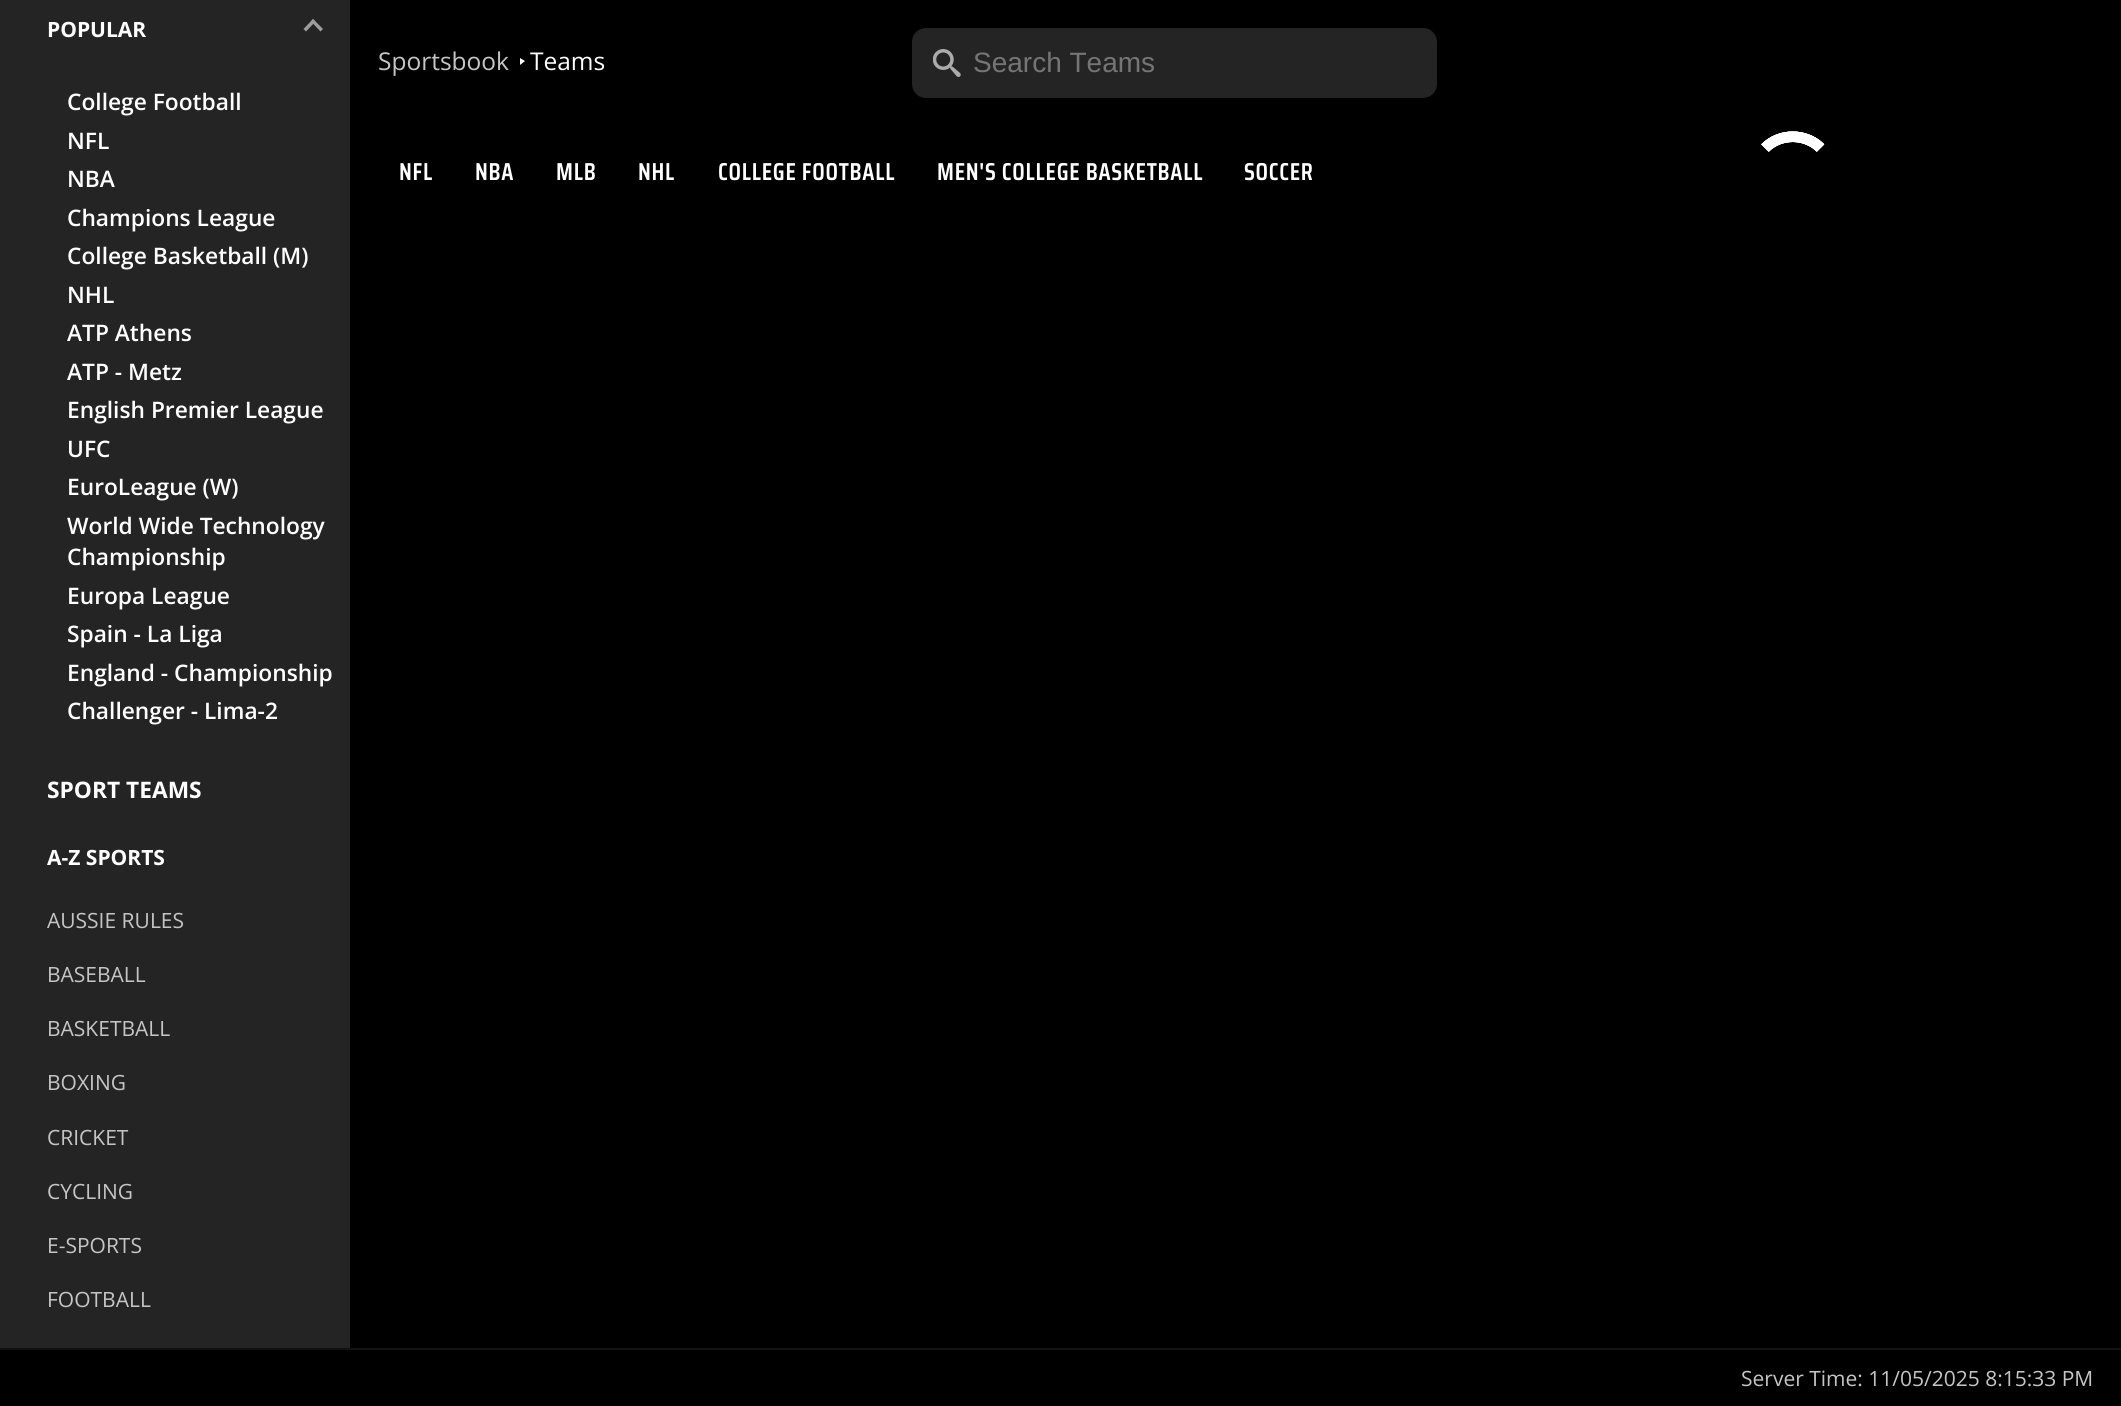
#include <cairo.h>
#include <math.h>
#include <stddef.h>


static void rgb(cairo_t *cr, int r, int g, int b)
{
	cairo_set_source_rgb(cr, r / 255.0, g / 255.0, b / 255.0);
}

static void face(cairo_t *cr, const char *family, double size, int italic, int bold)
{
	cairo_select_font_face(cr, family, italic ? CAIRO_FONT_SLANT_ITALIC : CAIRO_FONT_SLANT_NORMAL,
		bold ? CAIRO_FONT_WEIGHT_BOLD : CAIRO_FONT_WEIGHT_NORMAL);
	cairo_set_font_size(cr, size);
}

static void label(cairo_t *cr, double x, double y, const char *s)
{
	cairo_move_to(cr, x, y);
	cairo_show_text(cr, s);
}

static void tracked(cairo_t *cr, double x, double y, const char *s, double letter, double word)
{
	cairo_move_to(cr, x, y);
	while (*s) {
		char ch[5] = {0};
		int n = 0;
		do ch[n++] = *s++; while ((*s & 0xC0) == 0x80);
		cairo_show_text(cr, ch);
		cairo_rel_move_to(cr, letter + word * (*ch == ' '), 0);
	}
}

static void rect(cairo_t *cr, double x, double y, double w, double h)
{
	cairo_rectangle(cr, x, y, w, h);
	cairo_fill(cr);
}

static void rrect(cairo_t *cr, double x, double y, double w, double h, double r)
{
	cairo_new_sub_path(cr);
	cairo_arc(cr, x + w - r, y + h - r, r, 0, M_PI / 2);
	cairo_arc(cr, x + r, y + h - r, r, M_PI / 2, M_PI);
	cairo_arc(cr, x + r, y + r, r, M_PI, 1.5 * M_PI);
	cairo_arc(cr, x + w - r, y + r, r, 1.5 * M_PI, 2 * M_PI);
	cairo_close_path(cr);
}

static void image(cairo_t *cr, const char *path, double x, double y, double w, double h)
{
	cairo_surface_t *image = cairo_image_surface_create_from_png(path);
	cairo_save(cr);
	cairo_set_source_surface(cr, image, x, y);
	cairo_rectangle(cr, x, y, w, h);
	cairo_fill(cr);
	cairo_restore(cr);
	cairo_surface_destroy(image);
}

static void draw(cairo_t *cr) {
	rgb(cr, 0, 0, 0);
	cairo_paint(cr);
	rgb(cr, 36, 36, 36);
	rect(cr, 0, 0, 350, 1348);
	face(cr, "Open Sans", 21, 0, 1);
	rgb(cr, 255, 255, 255);
	label(cr, 47, 37, "POPULAR");
	rgb(cr, 157, 157, 157);
	cairo_new_path(cr);
	cairo_move_to(cr, 303.5, 29);
	cairo_line_to(cr, 313, 19);
	cairo_line_to(cr, 315.5, 21.5);
	cairo_line_to(cr, 306, 31.5);
	cairo_close_path(cr);
	cairo_fill(cr);
	cairo_new_path(cr);
	cairo_move_to(cr, 311, 21.5);
	cairo_line_to(cr, 313, 19);
	cairo_line_to(cr, 323, 29);
	cairo_line_to(cr, 320.5, 31.5);
	cairo_close_path(cr);
	cairo_fill(cr);
	face(cr, "Open Sans SemiBold", 22.75, 0, 0);
	rgb(cr, 255, 255, 255);
	label(cr, 67, 110, "College Football");
	label(cr, 67, 149, "NFL");
	label(cr, 67, 187, "NBA");
	label(cr, 67, 226, "Champions League");
	label(cr, 67, 264, "College Basketball (M)");
	label(cr, 67, 303, "NHL");
	label(cr, 67, 341, "ATP Athens");
	label(cr, 67, 380, "ATP - Metz");
	label(cr, 67, 418, "English Premier League");
	label(cr, 67, 457, "UFC");
	label(cr, 67, 495, "EuroLeague (W)");
	label(cr, 67, 534, "World Wide Technology");
	label(cr, 67, 565, "Championship");
	label(cr, 67, 604, "Europa League");
	label(cr, 67, 642, "Spain - La Liga");
	label(cr, 67, 681, "England - Championship");
	label(cr, 67, 719, "Challenger - Lima-2");
	face(cr, "Open Sans", 22.75, 0, 1);
	label(cr, 47, 798, "SPORT TEAMS");
	face(cr, "Open Sans", 21, 0, 1);
	label(cr, 47, 865, "A-Z SPORTS");
	face(cr, "Open Sans", 21, 0, 0);
	rgb(cr, 197, 197, 197);
	label(cr, 47, 928, "AUSSIE RULES");
	label(cr, 47, 982, "BASEBALL");
	label(cr, 47, 1036, "BASKETBALL");
	label(cr, 47, 1090, "BOXING");
	label(cr, 47, 1145, "CRICKET");
	label(cr, 47, 1199, "CYCLING");
	label(cr, 47, 1253, "E-SPORTS");
	label(cr, 47, 1307, "FOOTBALL");
	face(cr, "Open Sans", 24.5, 0, 0);
	label(cr, 378, 70, "Sportsbook");
	rgb(cr, 255, 255, 255);
	cairo_new_path(cr);
	cairo_move_to(cr, 520, 65);
	cairo_line_to(cr, 520, 58);
	cairo_line_to(cr, 525, 61);
	cairo_close_path(cr);
	cairo_fill(cr);
	label(cr, 530, 70, "Teams");
	rgb(cr, 36, 36, 36);
	rrect(cr, 912, 28, 525, 70, 14);
	cairo_fill(cr);
	image(cr, "image0.png", 933, 49, 28, 28);
	face(cr, "Liberation Sans", 28, 0, 0);
	rgb(cr, 117, 117, 117);
	label(cr, 973, 72, "Search Teams");
	face(cr, "Saira Condensed SemiBold", 24.5, 0, 0);
	rgb(cr, 255, 255, 255);
	tracked(cr, 399, 180, "NFL", 0.75, 0);
	tracked(cr, 475, 180, "NBA", 0.75, 0);
	tracked(cr, 556, 180, "MLB", 0.75, 0);
	tracked(cr, 638, 180, "NHL", 0.75, 0);
	tracked(cr, 718, 180, "COLLEGE FOOTBALL", 0.75, 0);
	tracked(cr, 937, 180, "MEN'S COLLEGE BASKETBALL", 0.75, 0);
	tracked(cr, 1244, 180, "SOCCER", 0.75, 0);
	cairo_new_path(cr);
	cairo_move_to(cr, 1765, 148);
	cairo_curve_to(cr, 1780, 133, 1805.5, 133, 1820.5, 148);
	cairo_set_line_width(cr, 10.5);
	cairo_stroke(cr);
	cairo_new_path(cr);
	cairo_move_to(cr, 1765, 148);
	cairo_curve_to(cr, 1780, 133, 1805.5, 133, 1820.5, 148);
	cairo_stroke(cr);
	cairo_new_path(cr);
	cairo_move_to(cr, 1765, 148);
	cairo_curve_to(cr, 1780, 133, 1805.5, 133, 1820.5, 148);
	cairo_stroke(cr);
	cairo_new_path(cr);
	cairo_move_to(cr, 1765, 148);
	cairo_curve_to(cr, 1780, 133, 1805.5, 133, 1820.5, 148);
	cairo_stroke(cr);
	rgb(cr, 18, 18, 18);
	rect(cr, 0, 1348, 2121, 2);
	face(cr, "Open Sans", 21, 0, 0);
	rgb(cr, 197, 197, 197);
	label(cr, 1741, 1386, "Server Time: 11/05/2025 8:15:33 PM");
}

int main(void) {
	cairo_surface_t *surface = cairo_image_surface_create(CAIRO_FORMAT_RGB24, 2121, 1406);
	cairo_t *cr = cairo_create(surface);
	cairo_font_options_t *options = cairo_font_options_create();
	cairo_font_options_set_hint_metrics(options, CAIRO_HINT_METRICS_OFF);
	cairo_font_options_set_hint_style(options, CAIRO_HINT_STYLE_NONE);
	cairo_set_font_options(cr, options);
	cairo_set_miter_limit(cr, 4);
	draw(cr);
	cairo_surface_write_to_png(surface, "render.png");
	cairo_font_options_destroy(options);
	cairo_destroy(cr);
	cairo_surface_destroy(surface);
	return 0;
}
